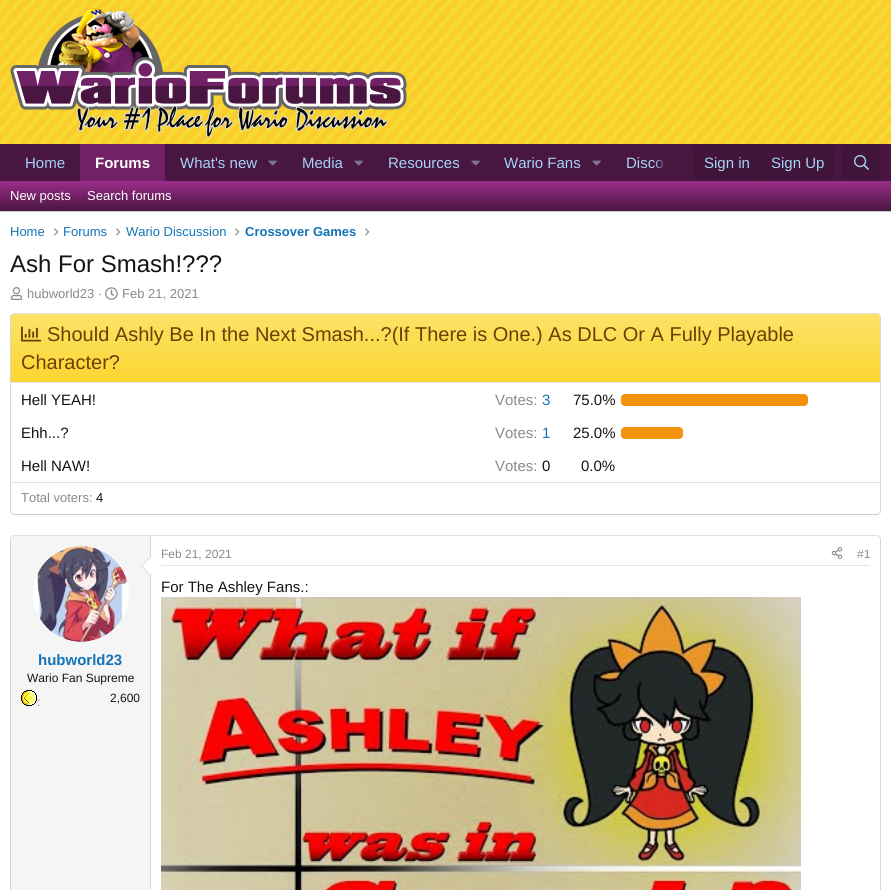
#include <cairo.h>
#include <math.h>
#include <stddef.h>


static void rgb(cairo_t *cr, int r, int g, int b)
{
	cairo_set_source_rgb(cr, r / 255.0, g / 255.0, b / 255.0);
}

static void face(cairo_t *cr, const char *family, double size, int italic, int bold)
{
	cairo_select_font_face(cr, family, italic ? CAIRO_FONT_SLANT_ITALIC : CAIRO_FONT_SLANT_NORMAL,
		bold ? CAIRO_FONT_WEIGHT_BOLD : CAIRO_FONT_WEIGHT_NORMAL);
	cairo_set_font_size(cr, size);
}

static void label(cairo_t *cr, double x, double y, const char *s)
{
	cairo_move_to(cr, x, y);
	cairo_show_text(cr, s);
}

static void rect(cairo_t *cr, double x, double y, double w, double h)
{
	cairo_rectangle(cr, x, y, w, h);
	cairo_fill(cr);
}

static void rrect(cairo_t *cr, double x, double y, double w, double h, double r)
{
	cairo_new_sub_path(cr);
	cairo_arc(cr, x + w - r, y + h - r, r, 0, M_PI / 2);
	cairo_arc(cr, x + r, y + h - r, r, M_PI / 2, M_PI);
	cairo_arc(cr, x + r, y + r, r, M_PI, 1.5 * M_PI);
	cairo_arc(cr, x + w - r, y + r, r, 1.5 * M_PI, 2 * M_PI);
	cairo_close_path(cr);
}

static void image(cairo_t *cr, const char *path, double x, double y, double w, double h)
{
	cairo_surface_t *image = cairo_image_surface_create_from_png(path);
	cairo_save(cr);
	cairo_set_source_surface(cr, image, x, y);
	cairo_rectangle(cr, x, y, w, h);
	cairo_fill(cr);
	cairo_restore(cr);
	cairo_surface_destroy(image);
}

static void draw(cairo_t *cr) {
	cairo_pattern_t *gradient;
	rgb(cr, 255, 255, 255);
	cairo_paint(cr);
	image(cr, "image0.png", 0, 0, 891, 144);
	image(cr, "image1.png", 10, 7, 397, 131);
	rgb(cr, 73, 21, 65);
	rect(cr, 0, 144, 891, 37);
	face(cr, "Liberation Sans", 15, 0, 0);
	rgb(cr, 163, 212, 245);
	label(cr, 25, 168, "Home");
	rgb(cr, 113, 33, 101);
	cairo_new_path(cr);
	cairo_move_to(cr, 82, 144);
	cairo_line_to(cr, 163, 144);
	cairo_curve_to(cr, 164, 144, 165, 145, 165, 146);
	cairo_line_to(cr, 165, 181);
	cairo_line_to(cr, 80, 181);
	cairo_line_to(cr, 80, 146);
	cairo_curve_to(cr, 80, 145, 81, 144, 82, 144);
	cairo_close_path(cr);
	cairo_fill(cr);
	face(cr, "Liberation Sans", 15, 0, 1);
	rgb(cr, 255, 255, 255);
	label(cr, 95, 168, "Forums");
	face(cr, "Liberation Sans", 15, 0, 0);
	rgb(cr, 163, 212, 245);
	label(cr, 180, 168, "What's new");
	image(cr, "image2.png", 268, 160, 9, 6);
	label(cr, 302, 168, "Media");
	image(cr, "image2.png", 354, 160, 9, 6);
	label(cr, 388, 168, "Resources");
	image(cr, "image2.png", 471, 160, 9, 6);
	label(cr, 504, 168, "Wario Fans");
	image(cr, "image2.png", 592, 160, 9, 6);
	label(cr, 626, 168, "Disco");
	gradient = cairo_pattern_create_linear(654, 163, 694, 163);
	cairo_pattern_add_color_stop_rgba(gradient, 0, 0.286, 0.082, 0.255, 0);
	cairo_pattern_add_color_stop_rgba(gradient, 0.33, 0.286, 0.082, 0.255, 1);
	cairo_set_source(cr, gradient);
	cairo_pattern_destroy(gradient);
	rect(cr, 654, 160, 9, 9);
	rgb(cr, 65, 21, 58);
	cairo_new_path(cr);
	cairo_move_to(cr, 698, 144);
	cairo_line_to(cr, 830, 144);
	cairo_curve_to(cr, 832, 144, 834, 146, 834, 148);
	cairo_line_to(cr, 834, 181);
	cairo_line_to(cr, 694, 181);
	cairo_line_to(cr, 694, 148);
	cairo_curve_to(cr, 694, 146, 696, 144, 698, 144);
	cairo_close_path(cr);
	cairo_fill(cr);
	rgb(cr, 163, 212, 245);
	label(cr, 704, 168, "Sign in");
	rgb(cr, 58, 21, 52);
	rect(cr, 760, 144, 1, 37);
	rgb(cr, 163, 212, 245);
	label(cr, 771, 168, "Sign Up");
	rgb(cr, 65, 21, 58);
	cairo_new_path(cr);
	cairo_move_to(cr, 846, 144);
	cairo_line_to(cr, 877, 144);
	cairo_curve_to(cr, 879, 144, 881, 146, 881, 148);
	cairo_line_to(cr, 881, 181);
	cairo_line_to(cr, 842, 181);
	cairo_line_to(cr, 842, 148);
	cairo_curve_to(cr, 842, 146, 844, 144, 846, 144);
	cairo_close_path(cr);
	cairo_fill(cr);
	image(cr, "image3.png", 854, 155, 15, 15);
	gradient = cairo_pattern_create_linear(446, 181, 446, 211);
	cairo_pattern_add_color_stop_rgba(gradient, 0, 0.612, 0.18, 0.545, 1);
	cairo_pattern_add_color_stop_rgba(gradient, 1, 0.286, 0.082, 0.255, 1);
	cairo_set_source(cr, gradient);
	cairo_pattern_destroy(gradient);
	rect(cr, 0, 181, 891, 30);
	rgb(cr, 204, 204, 204);
	rect(cr, 0, 211, 891, 1);
	face(cr, "Liberation Sans", 13, 0, 0);
	rgb(cr, 255, 255, 255);
	label(cr, 10, 200, "New posts");
	label(cr, 87, 200, "Search forums");
	rgb(cr, 20, 116, 184);
	label(cr, 10, 236, "Home");
	image(cr, "image4.png", 54, 228, 4, 8);
	label(cr, 63, 236, "Forums");
	image(cr, "image5.png", 116, 228, 5, 8);
	label(cr, 126, 236, "Wario Discussion");
	image(cr, "image5.png", 235, 228, 5, 8);
	face(cr, "Liberation Sans", 13, 0, 1);
	label(cr, 245, 236, "Crossover Games");
	image(cr, "image5.png", 365, 228, 5, 8);
	face(cr, "Liberation Sans", 24, 0, 0);
	rgb(cr, 20, 20, 20);
	label(cr, 10, 272, "Ash For Smash!?\077?");
	image(cr, "image6.png", 10, 287, 13, 13);
	face(cr, "Liberation Sans", 13, 0, 0);
	rgb(cr, 138, 138, 138);
	label(cr, 27, 298, "hubworld23 ·");
	image(cr, "image7.png", 105, 287, 13, 13);
	label(cr, 122, 298, "Feb 21, 2021");
	cairo_new_path(cr);
	cairo_move_to(cr, 11.5, 314.5);
	cairo_line_to(cr, 14, 313.5);
	cairo_line_to(cr, 877, 313.5);
	cairo_line_to(cr, 879.5, 314.5);
	rgb(cr, 224, 224, 224);
	cairo_set_line_width(cr, 1);
	cairo_stroke(cr);
	cairo_new_path(cr);
	cairo_move_to(cr, 879.5, 314.5);
	cairo_curve_to(cr, 880, 315, 880.5, 316, 880.5, 317);
	cairo_line_to(cr, 880.5, 511);
	cairo_curve_to(cr, 880.5, 512, 880, 513, 879.5, 513.5);
	rgb(cr, 214, 214, 214);
	cairo_stroke(cr);
	cairo_new_path(cr);
	cairo_move_to(cr, 879.5, 513.5);
	cairo_line_to(cr, 877, 514.5);
	cairo_line_to(cr, 14, 514.5);
	cairo_line_to(cr, 11.5, 513.5);
	rgb(cr, 204, 204, 204);
	cairo_stroke(cr);
	cairo_new_path(cr);
	cairo_move_to(cr, 11.5, 513.5);
	cairo_curve_to(cr, 11, 513, 10.5, 512, 10.5, 511);
	cairo_line_to(cr, 10.5, 317);
	cairo_curve_to(cr, 10.5, 316, 11, 315, 11.5, 314.5);
	rgb(cr, 214, 214, 214);
	cairo_stroke(cr);
	gradient = cairo_pattern_create_linear(446, 314, 446, 382);
	cairo_pattern_add_color_stop_rgba(gradient, 0, 0.988, 0.886, 0.404, 1);
	cairo_pattern_add_color_stop_rgba(gradient, 1, 0.984, 0.839, 0.192, 1);
	cairo_set_source(cr, gradient);
	cairo_pattern_destroy(gradient);
	cairo_new_path(cr);
	cairo_move_to(cr, 14, 314);
	cairo_line_to(cr, 877, 314);
	cairo_curve_to(cr, 878.5, 314, 880, 315.5, 880, 317);
	cairo_line_to(cr, 880, 382);
	cairo_line_to(cr, 11, 382);
	cairo_line_to(cr, 11, 317);
	cairo_curve_to(cr, 11, 315.5, 12.5, 314, 14, 314);
	cairo_close_path(cr);
	cairo_fill(cr);
	rgb(cr, 224, 224, 224);
	rect(cr, 11, 382, 869, 1);
	image(cr, "image8.png", 21, 326, 20, 16);
	face(cr, "Liberation Sans", 20, 0, 0);
	rgb(cr, 109, 63, 3);
	label(cr, 47, 341, "Should Ashly Be In the Next Smash...?(If There is One.) As DLC Or A Fully Playable");
	label(cr, 21, 369, "Character?");
	face(cr, "Liberation Sans", 15, 0, 0);
	rgb(cr, 20, 20, 20);
	label(cr, 21, 405, "Hell YEAH!");
	rgb(cr, 138, 138, 138);
	label(cr, 495, 405, "Votes:");
	rgb(cr, 20, 116, 184);
	label(cr, 542, 405, "3");
	rgb(cr, 20, 20, 20);
	label(cr, 573, 405, "75.0%");
	rgb(cr, 242, 147, 13);
	rrect(cr, 621, 394, 187, 12, 4);
	cairo_fill(cr);
	rgb(cr, 20, 20, 20);
	label(cr, 21, 438, "Ehh...?");
	rgb(cr, 138, 138, 138);
	label(cr, 495, 438, "Votes:");
	rgb(cr, 20, 116, 184);
	label(cr, 542, 438, "1");
	rgb(cr, 20, 20, 20);
	label(cr, 573, 438, "25.0%");
	rgb(cr, 242, 147, 13);
	rrect(cr, 621, 427, 62, 12, 4);
	cairo_fill(cr);
	rgb(cr, 20, 20, 20);
	label(cr, 21, 471, "Hell NAW!");
	rgb(cr, 138, 138, 138);
	label(cr, 495, 471, "Votes:");
	rgb(cr, 20, 20, 20);
	label(cr, 542, 471, "0");
	label(cr, 581, 471, "0.0%");
	rgb(cr, 224, 224, 224);
	rect(cr, 11, 482, 869, 1);
	face(cr, "Liberation Sans", 13, 0, 0);
	rgb(cr, 138, 138, 138);
	label(cr, 21, 502, "Total voters:");
	rgb(cr, 20, 20, 20);
	label(cr, 96, 502, "4");
	cairo_new_path(cr);
	cairo_move_to(cr, 11.5, 536.5);
	cairo_line_to(cr, 14, 535.5);
	cairo_line_to(cr, 877, 535.5);
	cairo_line_to(cr, 879.5, 536.5);
	rgb(cr, 224, 224, 224);
	cairo_stroke(cr);
	cairo_new_path(cr);
	cairo_move_to(cr, 879.5, 536.5);
	cairo_line_to(cr, 880.5, 539);
	cairo_line_to(cr, 880.5, 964);
	cairo_line_to(cr, 879.5, 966.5);
	rgb(cr, 214, 214, 214);
	cairo_stroke(cr);
	cairo_new_path(cr);
	cairo_move_to(cr, 11.5, 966.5);
	cairo_line_to(cr, 10.5, 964);
	cairo_line_to(cr, 10.5, 539);
	cairo_line_to(cr, 11.5, 536.5);
	cairo_stroke(cr);
	rgb(cr, 229, 229, 229);
	rect(cr, 161, 565, 709, 1);
	face(cr, "Liberation Sans", 12, 0, 0);
	rgb(cr, 138, 138, 138);
	label(cr, 161, 558, "Feb 21, 2021");
	image(cr, "image9.png", 831, 547, 12, 12);
	label(cr, 857, 558, "#1");
	face(cr, "Liberation Sans", 15, 0, 0);
	rgb(cr, 20, 20, 20);
	label(cr, 161, 592, "For The Ashley Fans.:");
	image(cr, "image10.png", 161, 597, 640, 293);
	rgb(cr, 245, 245, 245);
	cairo_new_path(cr);
	cairo_move_to(cr, 14, 536);
	cairo_line_to(cr, 151, 536);
	cairo_line_to(cr, 151, 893);
	cairo_line_to(cr, 14, 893);
	cairo_curve_to(cr, 12.5, 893, 11, 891.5, 11, 890);
	cairo_line_to(cr, 11, 539);
	cairo_curve_to(cr, 11, 537.5, 12.5, 536, 14, 536);
	cairo_close_path(cr);
	cairo_fill(cr);
	rgb(cr, 214, 214, 214);
	rect(cr, 150, 536, 1, 354);
	rgb(cr, 255, 255, 255);
	cairo_arc(cr, 81, 594, 48, 0, 2 * M_PI);
	cairo_fill(cr);
	image(cr, "image11.png", 34, 546, 95, 96);
	rgb(cr, 214, 214, 214);
	cairo_new_path(cr);
	cairo_move_to(cr, 151, 556);
	cairo_line_to(cr, 151, 576);
	cairo_line_to(cr, 141, 566);
	cairo_close_path(cr);
	cairo_fill(cr);
	rgb(cr, 255, 255, 255);
	cairo_new_path(cr);
	cairo_move_to(cr, 151, 557);
	cairo_line_to(cr, 151, 575);
	cairo_line_to(cr, 142, 566);
	cairo_close_path(cr);
	cairo_fill(cr);
	face(cr, "Liberation Sans", 15, 0, 1);
	rgb(cr, 20, 116, 184);
	label(cr, 38, 665, "hubworld23");
	face(cr, "Liberation Sans", 12, 0, 0);
	rgb(cr, 20, 20, 20);
	label(cr, 27, 682, "Wario Fan Supreme");
	image(cr, "image12.png", 21, 690, 16, 16);
	rgb(cr, 138, 138, 138);
	label(cr, 37, 706, ":");
	rgb(cr, 20, 20, 20);
	label(cr, 110, 702, "2,600");
}

int main(void) {
	cairo_surface_t *surface = cairo_image_surface_create(CAIRO_FORMAT_RGB24, 891, 890);
	cairo_t *cr = cairo_create(surface);
	cairo_font_options_t *options = cairo_font_options_create();
	cairo_font_options_set_hint_metrics(options, CAIRO_HINT_METRICS_OFF);
	cairo_font_options_set_hint_style(options, CAIRO_HINT_STYLE_NONE);
	cairo_set_font_options(cr, options);
	cairo_set_miter_limit(cr, 4);
	draw(cr);
	cairo_surface_write_to_png(surface, "render.png");
	cairo_font_options_destroy(options);
	cairo_destroy(cr);
	cairo_surface_destroy(surface);
	return 0;
}
